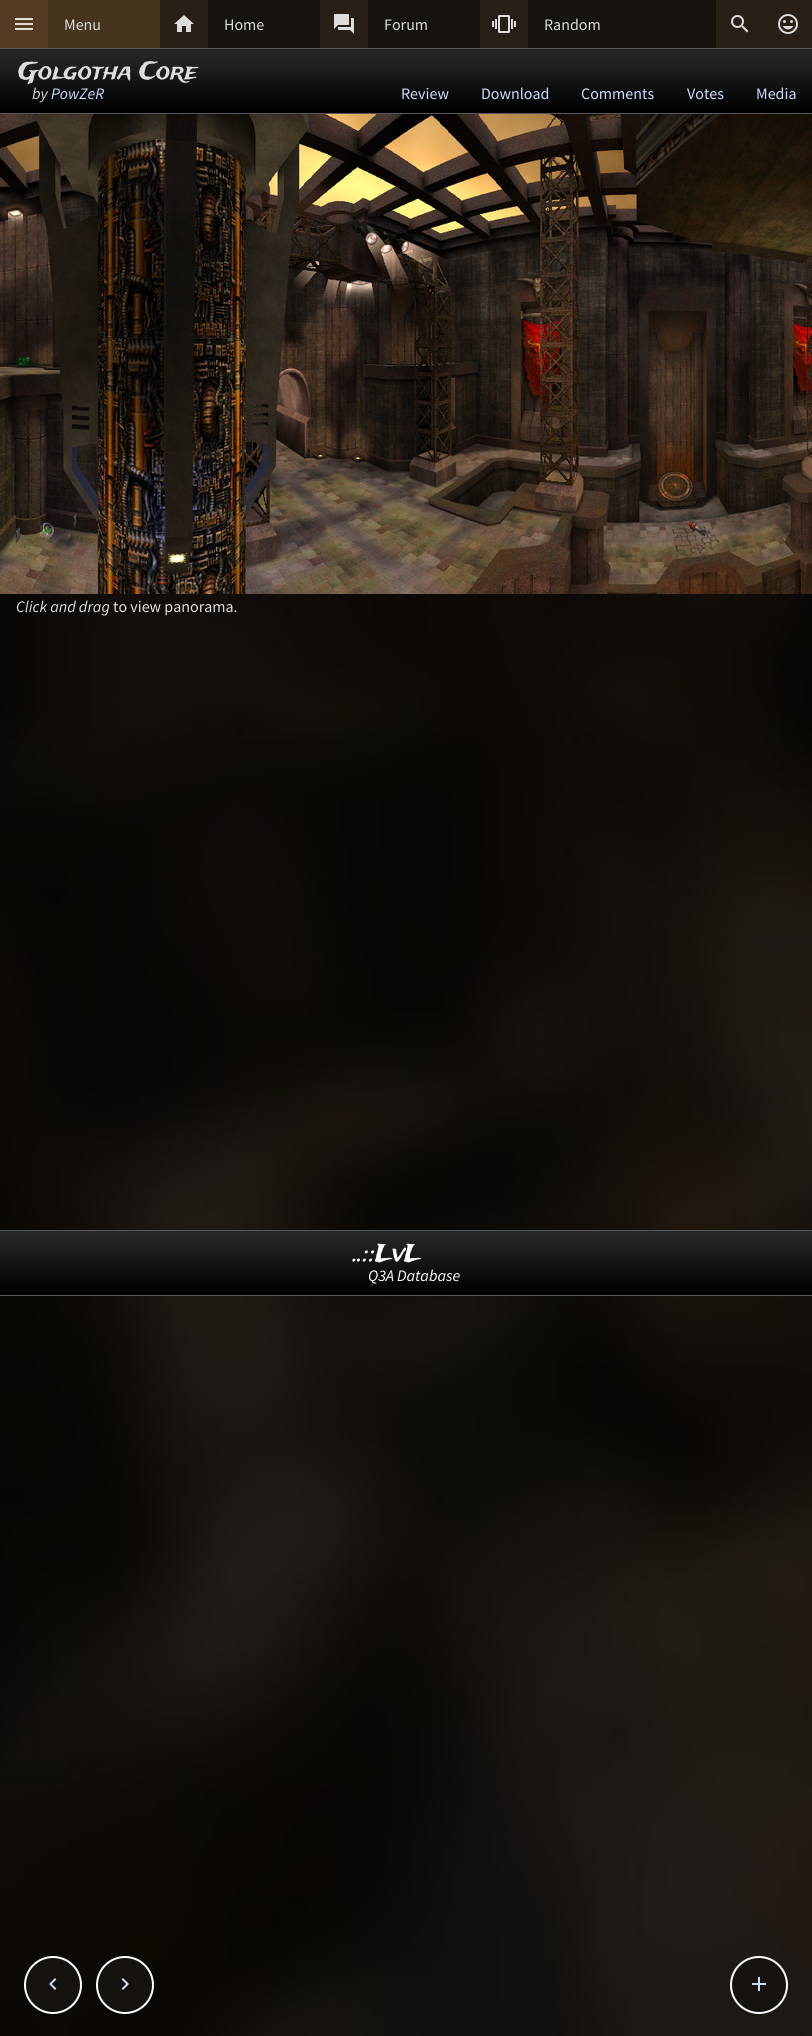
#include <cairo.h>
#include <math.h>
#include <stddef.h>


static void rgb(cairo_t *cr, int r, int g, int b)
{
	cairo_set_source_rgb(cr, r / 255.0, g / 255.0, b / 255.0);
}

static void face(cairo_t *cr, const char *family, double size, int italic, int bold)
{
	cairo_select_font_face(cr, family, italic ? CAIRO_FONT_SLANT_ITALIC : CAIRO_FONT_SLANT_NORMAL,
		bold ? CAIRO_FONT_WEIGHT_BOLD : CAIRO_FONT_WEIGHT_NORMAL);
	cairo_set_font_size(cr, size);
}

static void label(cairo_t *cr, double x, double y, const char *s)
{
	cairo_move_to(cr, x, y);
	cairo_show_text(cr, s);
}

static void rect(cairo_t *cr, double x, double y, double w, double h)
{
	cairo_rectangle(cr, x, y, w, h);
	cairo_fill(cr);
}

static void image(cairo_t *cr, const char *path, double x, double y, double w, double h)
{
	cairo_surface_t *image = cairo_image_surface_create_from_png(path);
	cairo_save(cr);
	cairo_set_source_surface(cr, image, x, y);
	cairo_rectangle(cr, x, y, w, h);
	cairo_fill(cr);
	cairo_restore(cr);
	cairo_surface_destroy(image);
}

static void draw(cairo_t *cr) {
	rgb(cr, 255, 255, 255);
	cairo_paint(cr);
	rgb(cr, 22, 19, 15);
	rect(cr, 208, 0, 508, 48);
	rgb(cr, 84, 60, 34);
	rect(cr, 0, 0, 48, 48);
	image(cr, "image0.png", 15, 18, 18, 12);
	rgb(cr, 71, 52, 31);
	rect(cr, 48, 0, 112, 48);
	face(cr, "Source Sans Pro", 16, 0, 0);
	rgb(cr, 221, 221, 221);
	label(cr, 64, 30, "Menu");
	rgb(cr, 40, 32, 22);
	rect(cr, 160, 0, 48, 48);
	image(cr, "image1.png", 174, 15, 20, 17);
	rgb(cr, 221, 221, 221);
	label(cr, 224, 30, "Home");
	rgb(cr, 40, 32, 22);
	rect(cr, 320, 0, 48, 48);
	image(cr, "image2.png", 334, 14, 20, 20);
	rgb(cr, 221, 221, 221);
	label(cr, 384, 30, "Forum");
	rgb(cr, 40, 32, 22);
	rect(cr, 480, 0, 48, 48);
	image(cr, "image3.png", 492, 15, 24, 18);
	rgb(cr, 221, 221, 221);
	label(cr, 544, 30, "Random");
	rgb(cr, 40, 32, 22);
	rect(cr, 716, 0, 96, 48);
	image(cr, "image4.png", 731, 15, 18, 18);
	image(cr, "image5.png", 778, 14, 20, 20);
	image(cr, "image6.png", 0, 49, 812, 64);
	rgb(cr, 86, 88, 93);
	rect(cr, 0, 48, 812, 1);
	rect(cr, 0, 113, 812, 1);
	face(cr, "Trade Winds", 24, 0, 0);
	rgb(cr, 221, 221, 221);
	label(cr, 18, 79, "Golgotha Core");
	face(cr, "Source Sans Pro", 16, 1, 0);
	label(cr, 32, 99, "by");
	rgb(cr, 204, 221, 255);
	label(cr, 51, 99, "PowZeR");
	face(cr, "Source Sans Pro", 16, 0, 0);
	label(cr, 401, 99, "Review");
	label(cr, 481, 99, "Download");
	label(cr, 581, 99, "Comments");
	label(cr, 687, 99, "Votes");
	label(cr, 756, 99, "Media");
	image(cr, "image7.png", 0, 594, 812, 1442);
	image(cr, "image8.png", 0, 114, 480, 480);
	image(cr, "image9.png", 480, 114, 332, 480);
	face(cr, "Source Sans Pro", 16, 1, 0);
	rgb(cr, 221, 221, 221);
	label(cr, 16, 612, "Click and drag");
	face(cr, "Source Sans Pro", 16, 0, 0);
	label(cr, 113, 612, "to view panorama.");
	rgb(cr, 22, 19, 15);
	cairo_new_path(cr);
	cairo_arc(cr, 53, 1985, 28, 0, 2 * M_PI);
	cairo_fill_preserve(cr);
	rgb(cr, 255, 255, 255);
	cairo_stroke(cr);
	image(cr, "image10.png", 49, 1978, 8, 12);
	rgb(cr, 22, 19, 15);
	cairo_arc(cr, 125, 1985, 28, 0, 2 * M_PI);
	cairo_fill_preserve(cr);
	rgb(cr, 255, 255, 255);
	cairo_stroke(cr);
	image(cr, "image11.png", 121, 1978, 8, 12);
	rgb(cr, 22, 19, 15);
	cairo_arc(cr, 759, 1985, 28, 0, 2 * M_PI);
	cairo_fill_preserve(cr);
	rgb(cr, 255, 255, 255);
	cairo_stroke(cr);
	image(cr, "image12.png", 752, 1977, 14, 14);
	image(cr, "image6.png", 0, 1231, 812, 64);
	rgb(cr, 86, 88, 93);
	rect(cr, 0, 1230, 812, 1);
	rect(cr, 0, 1295, 812, 1);
	face(cr, "Trade Winds", 24, 0, 0);
	rgb(cr, 255, 255, 255);
	label(cr, 354, 1261, "..::LvL");
	face(cr, "Source Sans Pro", 16, 1, 0);
	label(cr, 368, 1281, "Q3A Database");
}

int main(void) {
	cairo_surface_t *surface = cairo_image_surface_create(CAIRO_FORMAT_RGB24, 812, 2036);
	cairo_t *cr = cairo_create(surface);
	cairo_font_options_t *options = cairo_font_options_create();
	cairo_font_options_set_hint_metrics(options, CAIRO_HINT_METRICS_OFF);
	cairo_font_options_set_hint_style(options, CAIRO_HINT_STYLE_NONE);
	cairo_set_font_options(cr, options);
	cairo_set_miter_limit(cr, 4);
	draw(cr);
	cairo_surface_write_to_png(surface, "render.png");
	cairo_font_options_destroy(options);
	cairo_destroy(cr);
	cairo_surface_destroy(surface);
	return 0;
}
